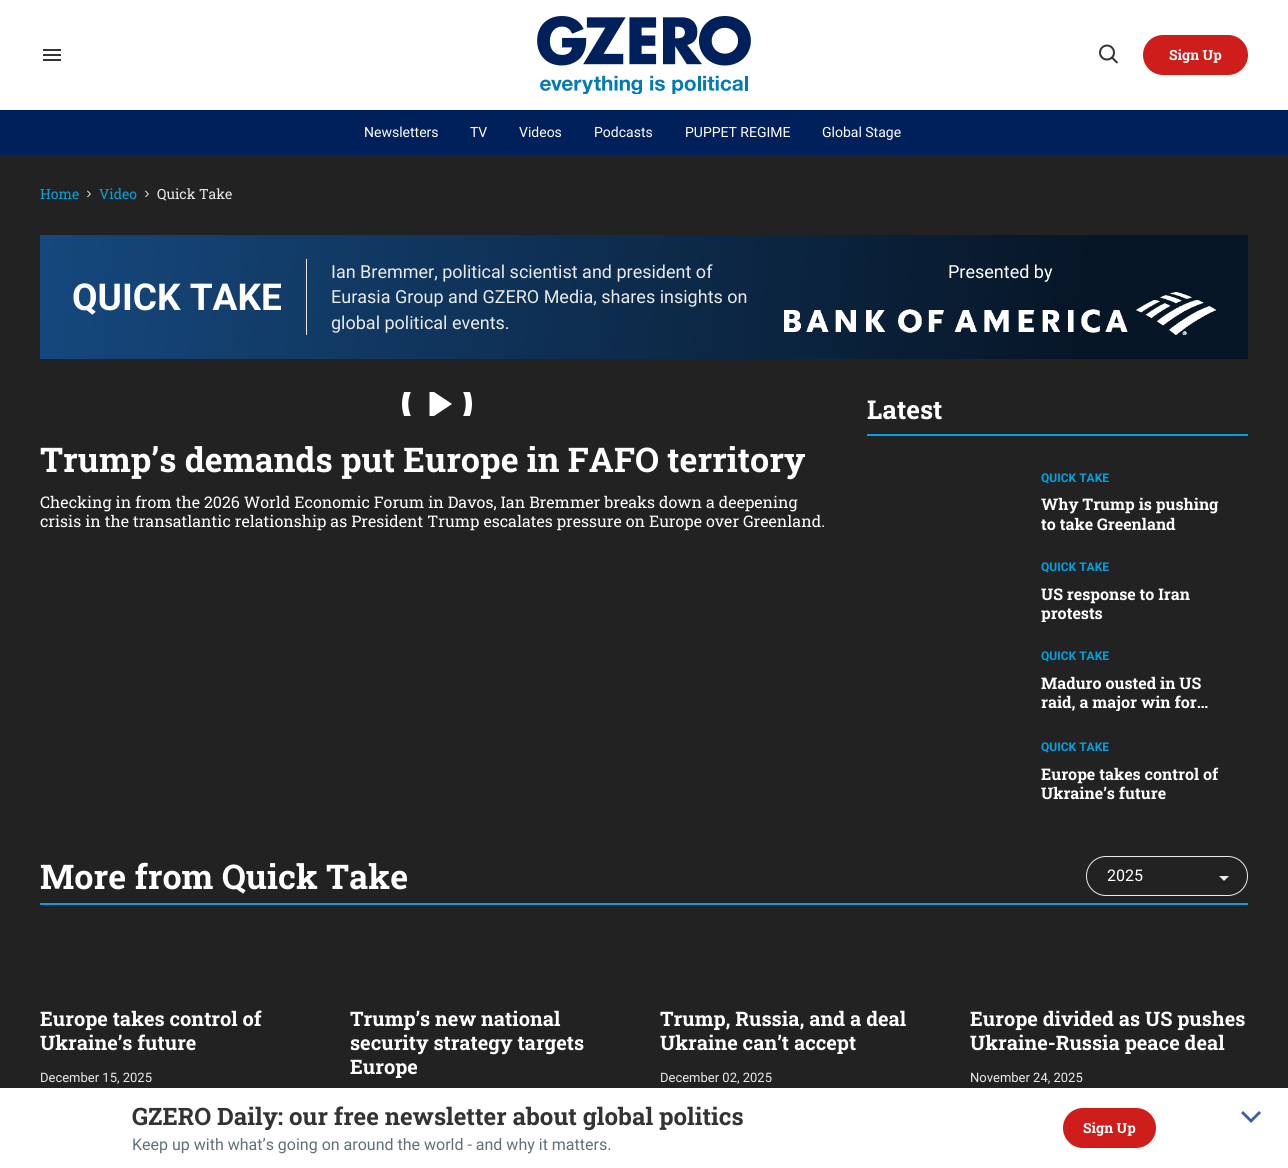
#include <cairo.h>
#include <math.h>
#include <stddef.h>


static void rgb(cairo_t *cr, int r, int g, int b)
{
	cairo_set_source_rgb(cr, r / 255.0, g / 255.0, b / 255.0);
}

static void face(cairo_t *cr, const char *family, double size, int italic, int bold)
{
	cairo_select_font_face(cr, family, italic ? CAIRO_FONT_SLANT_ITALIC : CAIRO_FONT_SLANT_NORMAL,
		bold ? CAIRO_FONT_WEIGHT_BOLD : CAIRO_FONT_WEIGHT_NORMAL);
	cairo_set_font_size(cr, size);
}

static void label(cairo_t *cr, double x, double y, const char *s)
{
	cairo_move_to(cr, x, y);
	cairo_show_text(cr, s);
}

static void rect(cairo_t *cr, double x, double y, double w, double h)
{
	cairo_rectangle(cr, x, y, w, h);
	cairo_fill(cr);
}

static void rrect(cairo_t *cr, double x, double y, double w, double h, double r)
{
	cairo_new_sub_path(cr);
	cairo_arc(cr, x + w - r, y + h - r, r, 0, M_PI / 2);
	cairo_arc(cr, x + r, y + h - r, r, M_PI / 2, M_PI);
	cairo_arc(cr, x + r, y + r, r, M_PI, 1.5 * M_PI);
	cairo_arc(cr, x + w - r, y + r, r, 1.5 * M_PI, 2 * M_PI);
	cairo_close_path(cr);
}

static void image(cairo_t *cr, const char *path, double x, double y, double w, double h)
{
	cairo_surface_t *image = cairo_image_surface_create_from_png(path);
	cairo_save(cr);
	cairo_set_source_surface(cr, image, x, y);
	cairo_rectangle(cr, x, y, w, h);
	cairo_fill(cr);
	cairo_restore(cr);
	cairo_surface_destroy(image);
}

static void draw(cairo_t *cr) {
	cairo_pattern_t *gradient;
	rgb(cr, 34, 34, 34);
	cairo_paint(cr);
	rgb(cr, 255, 255, 255);
	rect(cr, 0, 0, 1288, 110);
	image(cr, "image0.png", 43, 49, 18, 12);
	image(cr, "image1.png", 537, 16, 214, 78);
	image(cr, "image2.png", 1099, 44, 19, 20);
	rgb(cr, 206, 29, 27);
	rrect(cr, 1143, 35, 105, 40, 20);
	cairo_fill(cr);
	face(cr, "Roboto Slab", 14, 0, 1);
	rgb(cr, 255, 255, 255);
	label(cr, 1169, 60, "Sign Up");
	rgb(cr, 0, 32, 91);
	rect(cr, 0, 110, 1288, 45);
	face(cr, "Roboto", 14, 0, 0);
	rgb(cr, 255, 255, 255);
	label(cr, 364, 137, "Newsletters");
	label(cr, 470, 137, "TV");
	label(cr, 519, 137, "Videos");
	label(cr, 594, 137, "Podcasts");
	label(cr, 685, 137, "PUPPET REGIME");
	label(cr, 822, 137, "Global Stage");
	face(cr, "Roboto Slab", 14, 0, 0);
	rgb(cr, 0, 163, 224);
	label(cr, 40, 199, "Home");
	image(cr, "image3.png", 87, 190, 4, 7);
	label(cr, 99, 199, "Video");
	image(cr, "image3.png", 145, 190, 4, 7);
	rgb(cr, 234, 234, 234);
	label(cr, 157, 199, "Quick Take");
	gradient = cairo_pattern_create_linear(1248, 360, -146, 214);
	cairo_pattern_add_color_stop_rgba(gradient, 0.12, 0.027, 0.086, 0.153, 1);
	cairo_pattern_add_color_stop_rgba(gradient, 1, 0.094, 0.318, 0.553, 1);
	cairo_set_source(cr, gradient);
	cairo_pattern_destroy(gradient);
	rect(cr, 40, 235, 1208, 124);
	rgb(cr, 234, 234, 234);
	rect(cr, 306, 259, 1, 76);
	face(cr, "Roboto", 18, 0, 0);
	label(cr, 331, 278, "Ian Bremmer, political scientist and president of");
	label(cr, 331, 303, "Eurasia Group and GZERO Media, shares insights on");
	label(cr, 331, 329, "global political events.");
	rgb(cr, 255, 255, 255);
	label(cr, 948, 278, "Presented by");
	image(cr, "image4.png", 784, 292, 432, 43);
	face(cr, "Roboto", 37, 0, 1);
	label(cr, 72, 310, "QUICK TAKE");
	image(cr, "image5.png", 402, 392, 70, 24);
	face(cr, "Roboto Slab", 34, 0, 1);
	label(cr, 40, 472, "Trump’s demands put Europe in FAFO territory");
	face(cr, "Roboto Slab", 16, 0, 0);
	label(cr, 40, 508, "Checking in from the 2026 World Economic Forum in Davos, Ian Bremmer breaks down a deepening");
	label(cr, 40, 527, "crisis in the transatlantic relationship as President Trump escalates pressure on Europe over Greenland.");
	face(cr, "Roboto Slab", 26, 0, 1);
	label(cr, 867, 419, "Latest");
	rgb(cr, 0, 163, 224);
	rect(cr, 867, 434, 381, 2);
	face(cr, "Roboto", 12, 0, 1);
	label(cr, 1041, 482, "QUICK TAKE");
	face(cr, "Roboto Slab", 16, 0, 1);
	rgb(cr, 255, 255, 255);
	label(cr, 1041, 510, "Why Trump is pushing");
	label(cr, 1041, 530, "to take Greenland");
	face(cr, "Roboto", 12, 0, 1);
	rgb(cr, 0, 163, 224);
	label(cr, 1041, 571, "QUICK TAKE");
	face(cr, "Roboto Slab", 16, 0, 1);
	rgb(cr, 255, 255, 255);
	label(cr, 1041, 600, "US response to Iran");
	cairo_save(cr);
	cairo_rectangle(cr, 1041, 584, 191, 38);
	cairo_clip(cr);
	label(cr, 1041, 619, "protests");
	cairo_restore(cr);
	face(cr, "Roboto", 12, 0, 1);
	rgb(cr, 0, 163, 224);
	label(cr, 1041, 660, "QUICK TAKE");
	face(cr, "Roboto Slab", 16, 0, 1);
	rgb(cr, 255, 255, 255);
	label(cr, 1041, 689, "Maduro ousted in US");
	cairo_save(cr);
	cairo_rectangle(cr, 1041, 673, 191, 38);
	cairo_clip(cr);
	label(cr, 1041, 708, "raid, a major win for…");
	cairo_restore(cr);
	face(cr, "Roboto", 12, 0, 1);
	rgb(cr, 0, 163, 224);
	label(cr, 1041, 751, "QUICK TAKE");
	face(cr, "Roboto Slab", 16, 0, 1);
	rgb(cr, 255, 255, 255);
	label(cr, 1041, 780, "Europe takes control of");
	label(cr, 1041, 799, "Ukraine’s future");
	face(cr, "Roboto Slab", 34, 0, 1);
	label(cr, 40, 889, "More from Quick Take");
	rgb(cr, 0, 163, 224);
	rect(cr, 40, 903, 1208, 2);
	rrect(cr, 1086.5, 856.5, 161, 39, 19.5);
	rgb(cr, 234, 234, 234);
	cairo_set_line_width(cr, 1);
	cairo_stroke(cr);
	face(cr, "Roboto", 16, 0, 0);
	rgb(cr, 255, 255, 255);
	label(cr, 1107, 881, "2025");
	rgb(cr, 234, 234, 234);
	cairo_new_path(cr);
	cairo_move_to(cr, 1219, 876);
	cairo_line_to(cr, 1224, 881);
	cairo_line_to(cr, 1229, 876);
	cairo_close_path(cr);
	cairo_fill(cr);
	face(cr, "Roboto Slab", 20, 0, 1);
	rgb(cr, 255, 255, 255);
	label(cr, 40, 1026, "Europe takes control of");
	label(cr, 40, 1050, "Ukraine’s future");
	face(cr, "Roboto", 13, 0, 0);
	rgb(cr, 234, 234, 234);
	label(cr, 40, 1082, "December 15, 2025");
	face(cr, "Roboto Slab", 20, 0, 1);
	rgb(cr, 255, 255, 255);
	label(cr, 350, 1026, "Trump’s new national");
	label(cr, 350, 1050, "security strategy targets");
	cairo_save(cr);
	cairo_rectangle(cr, 350, 1006, 278, 72);
	cairo_clip(cr);
	label(cr, 350, 1074, "Europe");
	cairo_restore(cr);
	label(cr, 660, 1026, "Trump, Russia, and a deal");
	cairo_save(cr);
	cairo_rectangle(cr, 660, 1006, 278, 48);
	cairo_clip(cr);
	label(cr, 660, 1050, "Ukraine can’t accept");
	cairo_restore(cr);
	face(cr, "Roboto", 13, 0, 0);
	rgb(cr, 234, 234, 234);
	label(cr, 660, 1082, "December 02, 2025");
	face(cr, "Roboto Slab", 20, 0, 1);
	rgb(cr, 255, 255, 255);
	label(cr, 970, 1026, "Europe divided as US pushes");
	cairo_save(cr);
	cairo_rectangle(cr, 970, 1006, 278, 48);
	cairo_clip(cr);
	label(cr, 970, 1050, "Ukraine-Russia peace deal");
	cairo_restore(cr);
	face(cr, "Roboto", 13, 0, 0);
	rgb(cr, 234, 234, 234);
	label(cr, 970, 1082, "November 24, 2025");
	rgb(cr, 255, 255, 255);
	rect(cr, 0, 1088, 1288, 80);
	face(cr, "Roboto Slab", 24, 0, 1);
	rgb(cr, 51, 51, 51);
	label(cr, 132, 1125, "GZERO Daily: our free newsletter about global politics");
	face(cr, "Roboto", 16, 0, 0);
	rgb(cr, 94, 113, 120);
	label(cr, 132, 1150, "Keep up with what’s going on around the world - and why it matters.");
	rgb(cr, 206, 29, 27);
	rrect(cr, 1063, 1108, 93, 40, 20);
	cairo_fill(cr);
	face(cr, "Roboto Slab", 14, 0, 1);
	rgb(cr, 255, 255, 255);
	label(cr, 1083, 1133, "Sign Up");
	rgb(cr, 58, 93, 174);
	cairo_new_path(cr);
	cairo_move_to(cr, 1259, 1111);
	cairo_line_to(cr, 1261, 1113);
	cairo_line_to(cr, 1251, 1123);
	cairo_line_to(cr, 1241, 1113);
	cairo_line_to(cr, 1243, 1111);
	cairo_line_to(cr, 1251, 1119);
	cairo_close_path(cr);
	cairo_fill(cr);
}

int main(void) {
	cairo_surface_t *surface = cairo_image_surface_create(CAIRO_FORMAT_RGB24, 1288, 1168);
	cairo_t *cr = cairo_create(surface);
	cairo_font_options_t *options = cairo_font_options_create();
	cairo_font_options_set_hint_metrics(options, CAIRO_HINT_METRICS_OFF);
	cairo_font_options_set_hint_style(options, CAIRO_HINT_STYLE_NONE);
	cairo_set_font_options(cr, options);
	cairo_set_miter_limit(cr, 4);
	draw(cr);
	cairo_surface_write_to_png(surface, "render.png");
	cairo_font_options_destroy(options);
	cairo_destroy(cr);
	cairo_surface_destroy(surface);
	return 0;
}
